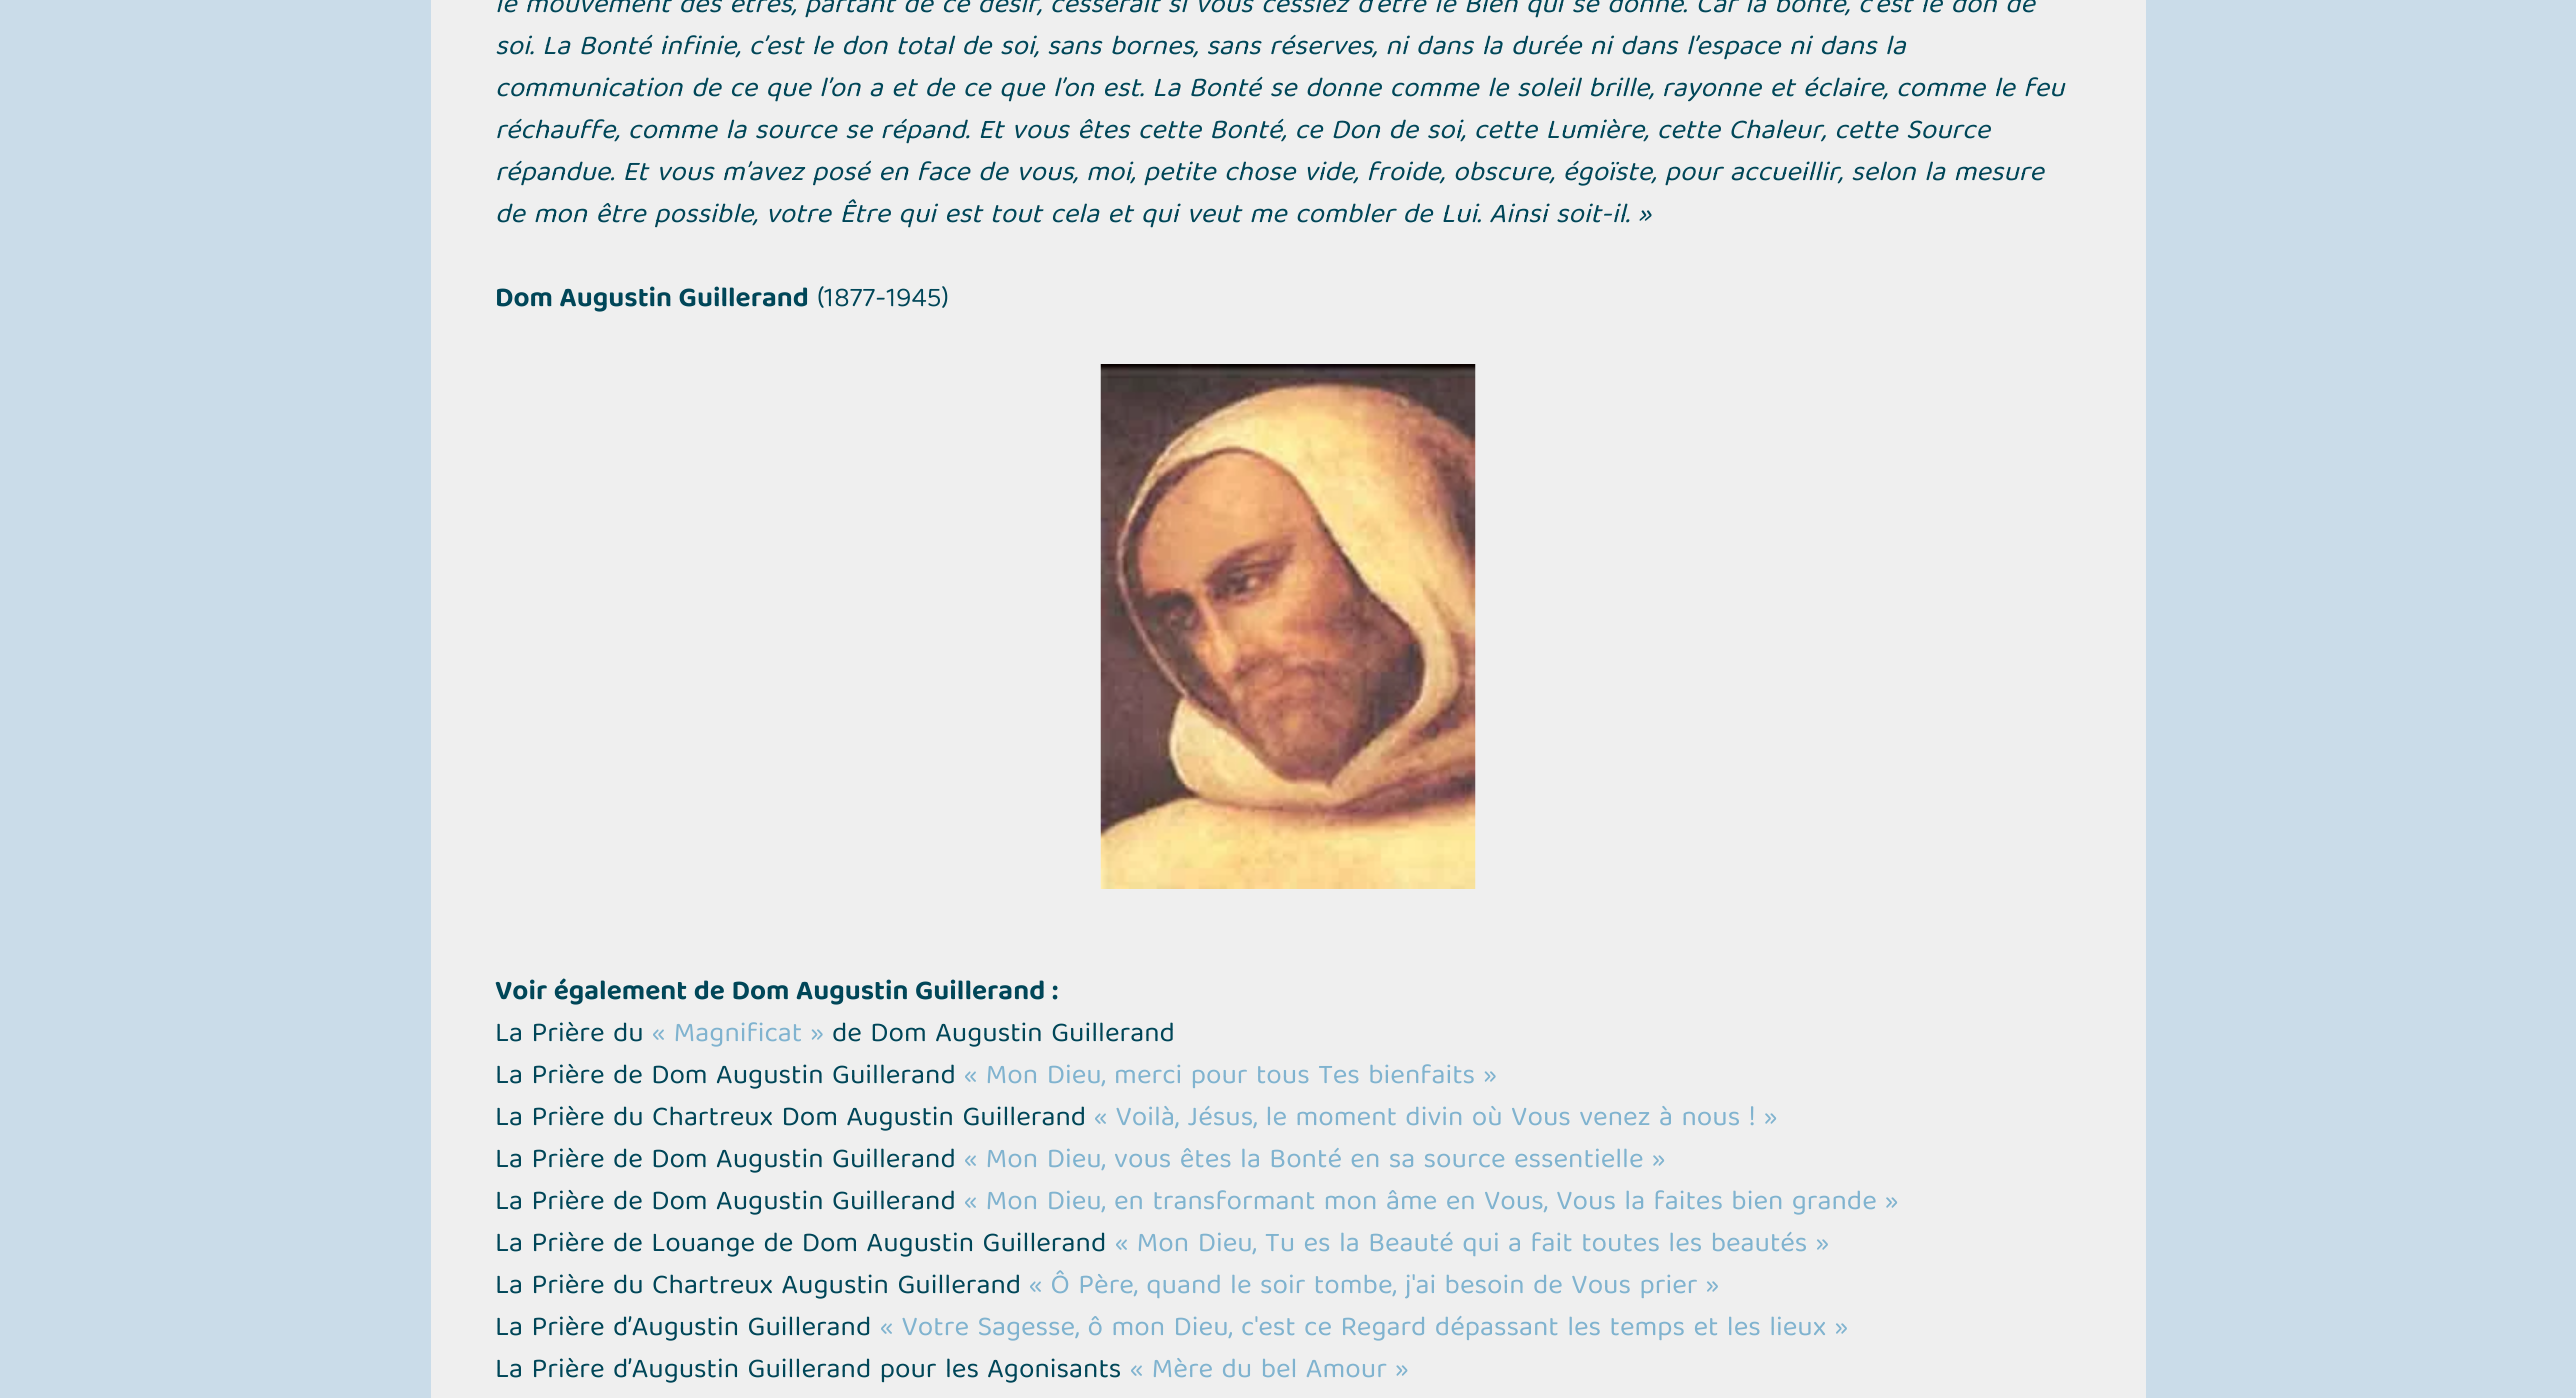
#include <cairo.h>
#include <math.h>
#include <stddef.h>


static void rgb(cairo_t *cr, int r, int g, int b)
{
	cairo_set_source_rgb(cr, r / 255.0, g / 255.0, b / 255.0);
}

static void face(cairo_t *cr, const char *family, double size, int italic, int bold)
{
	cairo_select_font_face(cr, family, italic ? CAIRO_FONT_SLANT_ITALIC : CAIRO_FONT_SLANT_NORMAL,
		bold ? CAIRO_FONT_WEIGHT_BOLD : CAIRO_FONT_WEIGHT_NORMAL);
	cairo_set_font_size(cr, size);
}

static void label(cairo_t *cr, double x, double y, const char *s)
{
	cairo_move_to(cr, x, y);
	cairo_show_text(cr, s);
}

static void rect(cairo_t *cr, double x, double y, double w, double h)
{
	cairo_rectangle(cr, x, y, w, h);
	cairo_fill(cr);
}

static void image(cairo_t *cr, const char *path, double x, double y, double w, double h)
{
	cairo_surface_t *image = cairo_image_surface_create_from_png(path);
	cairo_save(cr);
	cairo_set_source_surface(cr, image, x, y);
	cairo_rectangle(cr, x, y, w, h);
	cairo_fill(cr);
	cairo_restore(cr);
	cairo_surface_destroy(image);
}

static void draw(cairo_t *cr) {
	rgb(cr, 202, 220, 233);
	cairo_paint(cr);
	rgb(cr, 239, 239, 239);
	rect(cr, 431, 0, 1715, 1398);
	face(cr, "Baloo Tamma 2", 28, 1, 0);
	rgb(cr, 0, 70, 88);
	label(cr, 495, 12, "le mouvement des êtres, partant de ce désir, cesserait si vous cessiez d’être le Bien qui se donne. Car la bonté, c’est le don de");
	label(cr, 495, 54, "soi. La Bonté infinie, c’est le don total de soi, sans bornes, sans réserves, ni dans la durée ni dans l’espace ni dans la");
	label(cr, 495, 96, "communication de ce que l’on a et de ce que l’on est. La Bonté se donne comme le soleil brille, rayonne et éclaire, comme le feu");
	label(cr, 495, 138, "réchauffe, comme la source se répand. Et vous êtes cette Bonté, ce Don de soi, cette Lumière, cette Chaleur, cette Source");
	label(cr, 495, 180, "répandue. Et vous m’avez posé en face de vous, moi, petite chose vide, froide, obscure, égoïste, pour accueillir, selon la mesure");
	label(cr, 495, 222, "de mon être possible, votre Être qui est tout cela et qui veut me combler de Lui. Ainsi soit-il. »");
	face(cr, "Baloo Tamma 2", 28, 0, 1);
	label(cr, 495, 306, "Dom Augustin Guillerand");
	face(cr, "Baloo Tamma 2", 28, 0, 0);
	label(cr, 817, 306, "(1877-1945)");
	image(cr, "image0.png", 1100, 364, 376, 525);
	face(cr, "Baloo Tamma 2", 28, 0, 1);
	label(cr, 495, 999, "Voir également de Dom Augustin Guillerand :");
	face(cr, "Baloo Tamma 2", 28, 0, 0);
	label(cr, 495, 1041, "La Prière du");
	rgb(cr, 128, 179, 207);
	label(cr, 652, 1041, "« Magnificat »");
	rgb(cr, 0, 70, 88);
	label(cr, 832, 1041, "de Dom Augustin Guillerand");
	label(cr, 495, 1083, "La Prière de Dom Augustin Guillerand");
	rgb(cr, 128, 179, 207);
	label(cr, 964, 1083, "« Mon Dieu, merci pour tous Tes bienfaits »");
	rgb(cr, 0, 70, 88);
	label(cr, 495, 1125, "La Prière du Chartreux Dom Augustin Guillerand");
	rgb(cr, 128, 179, 207);
	label(cr, 1094, 1125, "« Voilà, Jésus, le moment divin où Vous venez à nous ! »");
	rgb(cr, 0, 70, 88);
	label(cr, 495, 1167, "La Prière de Dom Augustin Guillerand");
	rgb(cr, 128, 179, 207);
	label(cr, 964, 1167, "« Mon Dieu, vous êtes la Bonté en sa source essentielle »");
	rgb(cr, 0, 70, 88);
	label(cr, 495, 1209, "La Prière de Dom Augustin Guillerand");
	rgb(cr, 128, 179, 207);
	label(cr, 964, 1209, "« Mon Dieu, en transformant mon âme en Vous, Vous la faites bien grande »");
	rgb(cr, 0, 70, 88);
	label(cr, 495, 1251, "La Prière de Louange de Dom Augustin Guillerand");
	rgb(cr, 128, 179, 207);
	label(cr, 1115, 1251, "« Mon Dieu, Tu es la Beauté qui a fait toutes les beautés »");
	rgb(cr, 0, 70, 88);
	label(cr, 495, 1293, "La Prière du Chartreux Augustin Guillerand");
	rgb(cr, 128, 179, 207);
	label(cr, 1029, 1293, "« Ô Père, quand le soir tombe, j'ai besoin de Vous prier »");
	rgb(cr, 0, 70, 88);
	label(cr, 495, 1335, "La Prière d’Augustin Guillerand");
	rgb(cr, 128, 179, 207);
	label(cr, 880, 1335, "« Votre Sagesse, ô mon Dieu, c'est ce Regard dépassant les temps et les lieux »");
	rgb(cr, 0, 70, 88);
	label(cr, 495, 1377, "La Prière d’Augustin Guillerand pour les Agonisants");
	rgb(cr, 128, 179, 207);
	label(cr, 1130, 1377, "« Mère du bel Amour »");
}

int main(void) {
	cairo_surface_t *surface = cairo_image_surface_create(CAIRO_FORMAT_RGB24, 2576, 1398);
	cairo_t *cr = cairo_create(surface);
	cairo_font_options_t *options = cairo_font_options_create();
	cairo_font_options_set_hint_metrics(options, CAIRO_HINT_METRICS_OFF);
	cairo_font_options_set_hint_style(options, CAIRO_HINT_STYLE_NONE);
	cairo_set_font_options(cr, options);
	cairo_set_miter_limit(cr, 4);
	draw(cr);
	cairo_surface_write_to_png(surface, "render.png");
	cairo_font_options_destroy(options);
	cairo_destroy(cr);
	cairo_surface_destroy(surface);
	return 0;
}
